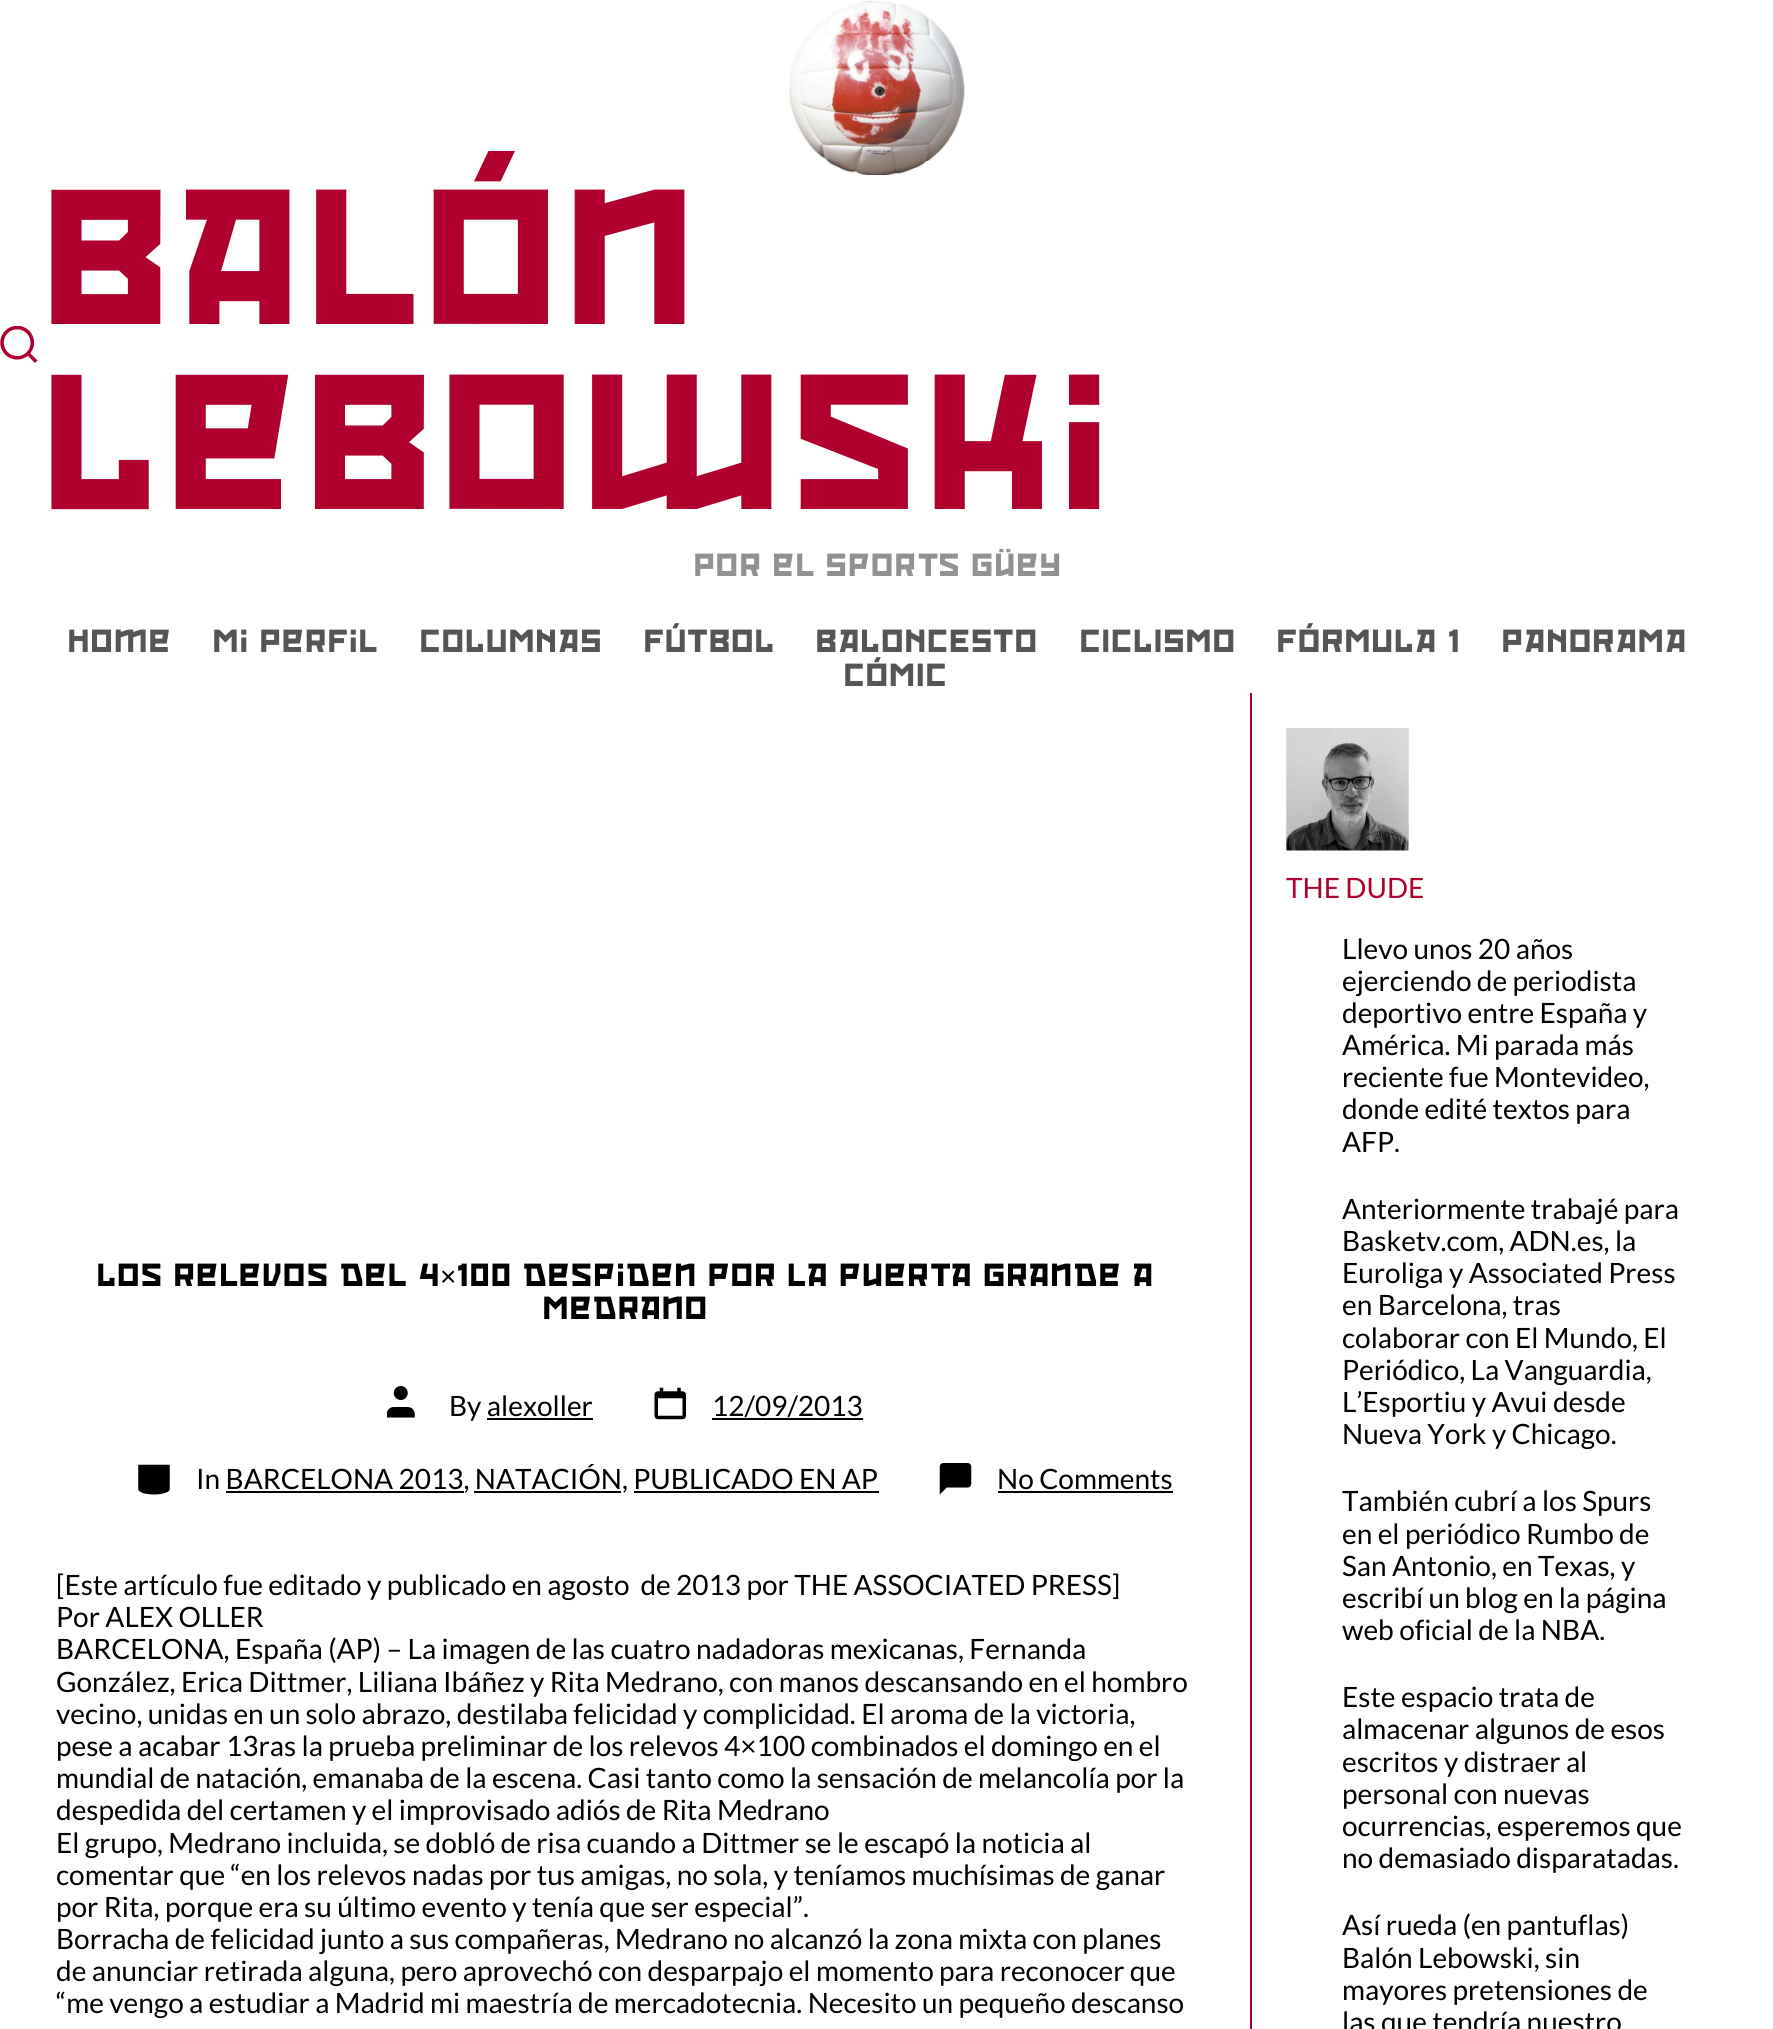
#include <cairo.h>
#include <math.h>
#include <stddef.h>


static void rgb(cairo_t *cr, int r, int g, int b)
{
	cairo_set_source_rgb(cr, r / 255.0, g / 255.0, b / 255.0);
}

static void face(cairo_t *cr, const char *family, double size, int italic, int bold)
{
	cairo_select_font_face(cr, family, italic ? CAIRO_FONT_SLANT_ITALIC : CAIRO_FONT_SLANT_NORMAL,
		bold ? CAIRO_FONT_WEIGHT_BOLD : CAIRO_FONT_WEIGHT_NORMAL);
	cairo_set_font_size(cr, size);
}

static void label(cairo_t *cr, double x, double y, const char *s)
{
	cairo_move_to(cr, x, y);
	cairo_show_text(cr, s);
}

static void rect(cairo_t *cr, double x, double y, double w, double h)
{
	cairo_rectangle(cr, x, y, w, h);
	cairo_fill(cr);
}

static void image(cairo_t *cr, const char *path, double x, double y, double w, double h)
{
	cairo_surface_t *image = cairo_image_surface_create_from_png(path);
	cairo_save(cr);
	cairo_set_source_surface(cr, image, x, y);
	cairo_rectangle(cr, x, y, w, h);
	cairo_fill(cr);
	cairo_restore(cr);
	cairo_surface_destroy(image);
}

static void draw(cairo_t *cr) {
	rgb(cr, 255, 255, 255);
	cairo_paint(cr);
	image(cr, "image0.png", 0, 326, 38, 37);
	image(cr, "image1.png", 789, 0, 176, 175);
	face(cr, "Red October", 168, 0, 0);
	rgb(cr, 175, 0, 46);
	label(cr, 38, 324, "Balón");
	label(cr, 38, 509, "Lebowski");
	face(cr, "Red October", 28, 0, 0);
	rgb(cr, 145, 145, 145);
	label(cr, 693, 576, "Por el Sports Güey");
	rgb(cr, 85, 85, 85);
	label(cr, 67, 652, "Home");
	label(cr, 212, 652, "Mi Perfil");
	label(cr, 419, 652, "COLUMNAS");
	label(cr, 643, 652, "FÚTBOL");
	label(cr, 815, 652, "BALONCESTO");
	label(cr, 1079, 652, "CICLISMO");
	label(cr, 1276, 652, "FÓRMULA 1");
	label(cr, 1501, 652, "PANORAMA");
	label(cr, 843, 686, "CÓMIC");
	rgb(cr, 0, 0, 0);
	label(cr, 96, 1286, "Los relevos del 4");
	face(cr, "Liberation Sans", 28, 0, 0);
	label(cr, 440, 1286, "×");
	face(cr, "Red October", 28, 0, 0);
	label(cr, 456, 1286, "100 despiden por la puerta grande a");
	label(cr, 542, 1319, "Medrano");
	image(cr, "image2.png", 387, 1386, 28, 32);
	face(cr, "Lato", 28, 0, 0);
	label(cr, 449, 1416, "By alexoller");
	rect(cr, 487, 1418, 106, 2);
	image(cr, "image3.png", 654, 1387, 32, 33);
	label(cr, 712, 1416, "12/09/2013");
	rect(cr, 712, 1418, 151, 2);
	image(cr, "image4.png", 138, 1464, 32, 31);
	label(cr, 196, 1489, "In BARCELONA 2013, NATACIÓN, PUBLICADO EN AP");
	rect(cr, 226, 1491, 238, 2);
	rect(cr, 474, 1491, 147, 2);
	rect(cr, 634, 1491, 245, 2);
	image(cr, "image5.png", 939, 1463, 33, 32);
	label(cr, 997, 1489, "No Comments");
	rect(cr, 998, 1491, 175, 2);
	label(cr, 56, 1595, "[Este artículo fue editado y publicado en agosto  de 2013 por THE ASSOCIATED PRESS]");
	label(cr, 56, 1627, "Por ALEX OLLER");
	label(cr, 56, 1659, "BARCELONA, España (AP) – La imagen de las cuatro nadadoras mexicanas, Fernanda");
	label(cr, 56, 1692, "González, Erica Dittmer, Liliana Ibáñez y Rita Medrano, con manos descansando en el hombro");
	label(cr, 56, 1724, "vecino, unidas en un solo abrazo, destilaba felicidad y complicidad. El aroma de la victoria,");
	label(cr, 56, 1756, "pese a acabar 13ras la prueba preliminar de los relevos 4×100 combinados el domingo en el");
	label(cr, 56, 1788, "mundial de natación, emanaba de la escena. Casi tanto como la sensación de melancolía por la");
	label(cr, 56, 1820, "despedida del certamen y el improvisado adiós de Rita Medrano");
	label(cr, 56, 1853, "El grupo, Medrano incluida, se dobló de risa cuando a Dittmer se le escapó la noticia al");
	label(cr, 56, 1885, "comentar que “en los relevos nadas por tus amigas, no sola, y teníamos muchísimas de ganar");
	label(cr, 56, 1917, "por Rita, porque era su último evento y tenía que ser especial”.");
	label(cr, 56, 1949, "Borracha de felicidad junto a sus compañeras, Medrano no alcanzó la zona mixta con planes");
	label(cr, 56, 1981, "de anunciar retirada alguna, pero aprovechó con desparpajo el momento para reconocer que");
	label(cr, 56, 2013, "“me vengo a estudiar a Madrid mi maestría de mercadotecnia. Necesito un pequeño descanso");
	rgb(cr, 175, 0, 46);
	rect(cr, 1250, 693, 2, 1336);
	image(cr, "image6.png", 1286, 728, 123, 123);
	label(cr, 1286, 898, "THE DUDE");
	rgb(cr, 0, 0, 0);
	label(cr, 1342, 959, "Llevo unos 20 años");
	label(cr, 1342, 991, "ejerciendo de periodista");
	label(cr, 1342, 1023, "deportivo entre España y");
	label(cr, 1342, 1055, "América. Mi parada más");
	label(cr, 1342, 1087, "reciente fue Montevideo,");
	label(cr, 1342, 1119, "donde edité textos para");
	label(cr, 1342, 1152, "AFP.");
	label(cr, 1342, 1219, "Anteriormente trabajé para");
	label(cr, 1342, 1251, "Basketv.com, ADN.es, la");
	label(cr, 1342, 1283, "Euroliga y Associated Press");
	label(cr, 1342, 1315, "en Barcelona, tras");
	label(cr, 1342, 1348, "colaborar con El Mundo, El");
	label(cr, 1342, 1380, "Periódico, La Vanguardia,");
	label(cr, 1342, 1412, "L’Esportiu y Avui desde");
	label(cr, 1342, 1444, "Nueva York y Chicago.");
	label(cr, 1342, 1511, "También cubrí a los Spurs");
	label(cr, 1342, 1544, "en el periódico Rumbo de");
	label(cr, 1342, 1576, "San Antonio, en Texas, y");
	label(cr, 1342, 1608, "escribí un blog en la página");
	label(cr, 1342, 1640, "web oficial de la NBA.");
	label(cr, 1342, 1707, "Este espacio trata de");
	label(cr, 1342, 1739, "almacenar algunos de esos");
	label(cr, 1342, 1772, "escritos y distraer al");
	label(cr, 1342, 1804, "personal con nuevas");
	label(cr, 1342, 1836, "ocurrencias, esperemos que");
	label(cr, 1342, 1868, "no demasiado disparatadas.");
	label(cr, 1342, 1935, "Así rueda (en pantuflas)");
	label(cr, 1342, 1968, "Balón Lebowski, sin");
	label(cr, 1342, 2000, "mayores pretensiones de");
	label(cr, 1342, 2032, "las que tendría nuestro");
}

int main(void) {
	cairo_surface_t *surface = cairo_image_surface_create(CAIRO_FORMAT_RGB24, 1773, 2029);
	cairo_t *cr = cairo_create(surface);
	cairo_font_options_t *options = cairo_font_options_create();
	cairo_font_options_set_hint_metrics(options, CAIRO_HINT_METRICS_OFF);
	cairo_font_options_set_hint_style(options, CAIRO_HINT_STYLE_NONE);
	cairo_set_font_options(cr, options);
	cairo_set_miter_limit(cr, 4);
	draw(cr);
	cairo_surface_write_to_png(surface, "render.png");
	cairo_font_options_destroy(options);
	cairo_destroy(cr);
	cairo_surface_destroy(surface);
	return 0;
}
